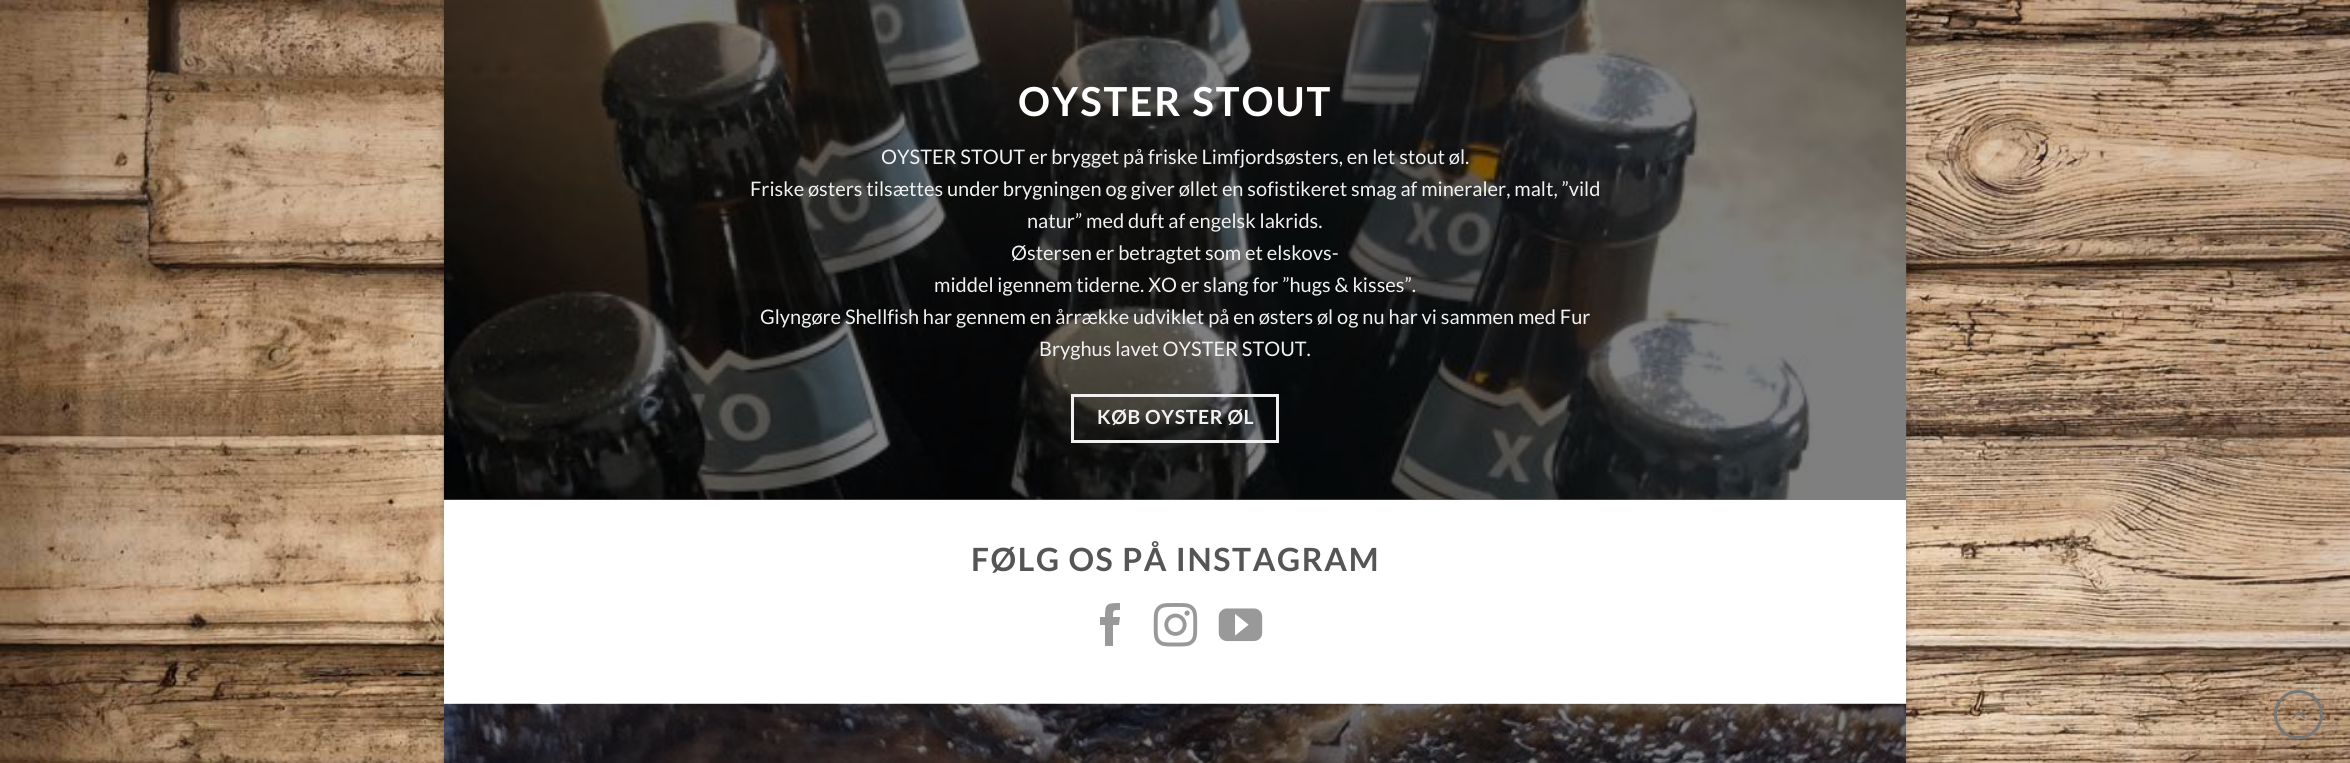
#include <cairo.h>
#include <math.h>
#include <stddef.h>


static void rgb(cairo_t *cr, int r, int g, int b)
{
	cairo_set_source_rgb(cr, r / 255.0, g / 255.0, b / 255.0);
}

static void face(cairo_t *cr, const char *family, double size, int italic, int bold)
{
	cairo_select_font_face(cr, family, italic ? CAIRO_FONT_SLANT_ITALIC : CAIRO_FONT_SLANT_NORMAL,
		bold ? CAIRO_FONT_WEIGHT_BOLD : CAIRO_FONT_WEIGHT_NORMAL);
	cairo_set_font_size(cr, size);
}

static void label(cairo_t *cr, double x, double y, const char *s)
{
	cairo_move_to(cr, x, y);
	cairo_show_text(cr, s);
}

static void tracked(cairo_t *cr, double x, double y, const char *s, double letter, double word)
{
	cairo_move_to(cr, x, y);
	while (*s) {
		char ch[5] = {0};
		int n = 0;
		do ch[n++] = *s++; while ((*s & 0xC0) == 0x80);
		cairo_show_text(cr, ch);
		cairo_rel_move_to(cr, letter + word * (*ch == ' '), 0);
	}
}

static void rect(cairo_t *cr, double x, double y, double w, double h)
{
	cairo_rectangle(cr, x, y, w, h);
	cairo_fill(cr);
}

static void rrect(cairo_t *cr, double x, double y, double w, double h, double r)
{
	cairo_new_sub_path(cr);
	cairo_arc(cr, x + w - r, y + h - r, r, 0, M_PI / 2);
	cairo_arc(cr, x + r, y + h - r, r, M_PI / 2, M_PI);
	cairo_arc(cr, x + r, y + r, r, M_PI, 1.5 * M_PI);
	cairo_arc(cr, x + w - r, y + r, r, 1.5 * M_PI, 2 * M_PI);
	cairo_close_path(cr);
}

static void soft_shadow(cairo_t *cr, double x, double y, double w, double h, double r, double blur, double alpha)
{
	cairo_push_group_with_content(cr, CAIRO_CONTENT_ALPHA);
	cairo_set_operator(cr, CAIRO_OPERATOR_SOURCE);
	for (int i = 15; i >= -15 && fmin(w, h) + blur * i / 3 > 0; i -= 2) {
		double e = blur * i / 6;
		cairo_set_source_rgba(cr, 0, 0, 0, alpha * erfc((i - 1) / 8.5) / 2);
		rrect(cr, x - e, y - e, w + 2 * e, h + 2 * e, fmax(0, fmin(r + e + blur * .6, fmin(w, h) / 2 + e)));
		cairo_fill(cr);
	}
	cairo_pattern_t *soft = cairo_pop_group(cr);
	cairo_mask(cr, soft);
	cairo_pattern_destroy(soft);
}

static void image(cairo_t *cr, const char *path, double x, double y, double w, double h)
{
	cairo_surface_t *image = cairo_image_surface_create_from_png(path);
	cairo_save(cr);
	cairo_set_source_surface(cr, image, x, y);
	cairo_rectangle(cr, x, y, w, h);
	cairo_fill(cr);
	cairo_restore(cr);
	cairo_surface_destroy(image);
}

static void draw(cairo_t *cr) {
	rgb(cr, 255, 255, 255);
	cairo_paint(cr);
	image(cr, "image0.png", 0, 0, 2350, 763);
	rgb(cr, 0, 0, 0);
	soft_shadow(cr, 444, -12, 1462, 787, 0, 4, 0.23);
	rgb(cr, 255, 255, 255);
	rect(cr, 444, 499, 1462, 205);
	image(cr, "image1.png", 443, 0, 1464, 500);
	cairo_set_source_rgba(cr, 0, 0, 0, 0.5);
	rect(cr, 444, 0, 1462, 500);
	face(cr, "Lato", 40, 0, 1);
	rgb(cr, 255, 255, 255);
	tracked(cr, 1018, 116, "OYSTER STOUT", 2, 0);
	face(cr, "Lato", 20, 0, 0);
	rgb(cr, 241, 241, 241);
	label(cr, 881, 164, "OYSTER STOUT er brygget på friske Limfjordsøsters, en let stout øl.");
	label(cr, 750, 196, "Friske østers tilsættes under brygningen og giver øllet en sofistikeret smag af mineraler, malt, ”vild");
	label(cr, 1027, 228, "natur” med duft af engelsk lakrids.");
	label(cr, 1011, 260, "Østersen er betragtet som et elskovs-");
	label(cr, 934, 292, "middel igennem tiderne. XO er slang for ”hugs & kisses”.");
	label(cr, 760, 324, "Glyngøre Shellfish har gennem en årrække udviklet på en østers øl og nu har vi sammen med Fur");
	label(cr, 1039, 356, "Bryghus lavet OYSTER STOUT.");
	cairo_rectangle(cr, 1072.5, 395.5, 205, 46);
	cairo_set_line_width(cr, 3);
	cairo_stroke(cr);
	face(cr, "Lato", 19.5, 0, 1);
	tracked(cr, 1097, 424, "KØB OYSTER ØL", 0.6, 0);
	face(cr, "Lato", 32, 0, 1);
	rgb(cr, 85, 85, 85);
	tracked(cr, 971, 571, "FØLG OS PÅ INSTAGRAM", 1.6, 0);
	rgb(cr, 153, 153, 153);
	cairo_new_path(cr);
	cairo_move_to(cr, 1113, 646);
	cairo_line_to(cr, 1105, 646);
	cairo_line_to(cr, 1105, 625);
	cairo_line_to(cr, 1100, 625);
	cairo_line_to(cr, 1100, 617);
	cairo_line_to(cr, 1105, 617);
	cairo_curve_to(cr, 1105, 604, 1106, 603, 1120, 603);
	cairo_line_to(cr, 1120, 610);
	cairo_curve_to(cr, 1113, 610, 1113, 610, 1113, 617);
	cairo_line_to(cr, 1120, 617);
	cairo_line_to(cr, 1119, 625);
	cairo_line_to(cr, 1113, 625);
	cairo_close_path(cr);
	cairo_fill(cr);
	image(cr, "image2.png", 1153, 603, 45, 44);
	image(cr, "image3.png", 1218, 608, 45, 34);
	image(cr, "image4.png", 443, 703, 1464, 60);
	cairo_arc(cr, 2298.5, 714.5, 23, 0, 2 * M_PI);
	rgb(cr, 119, 119, 119);
	cairo_stroke(cr);
	image(cr, "image5.png", 2292, 711, 14, 8);
}

int main(void) {
	cairo_surface_t *surface = cairo_image_surface_create(CAIRO_FORMAT_RGB24, 2350, 763);
	cairo_t *cr = cairo_create(surface);
	cairo_font_options_t *options = cairo_font_options_create();
	cairo_font_options_set_hint_metrics(options, CAIRO_HINT_METRICS_OFF);
	cairo_font_options_set_hint_style(options, CAIRO_HINT_STYLE_NONE);
	cairo_set_font_options(cr, options);
	cairo_set_miter_limit(cr, 4);
	draw(cr);
	cairo_surface_write_to_png(surface, "render.png");
	cairo_font_options_destroy(options);
	cairo_destroy(cr);
	cairo_surface_destroy(surface);
	return 0;
}
